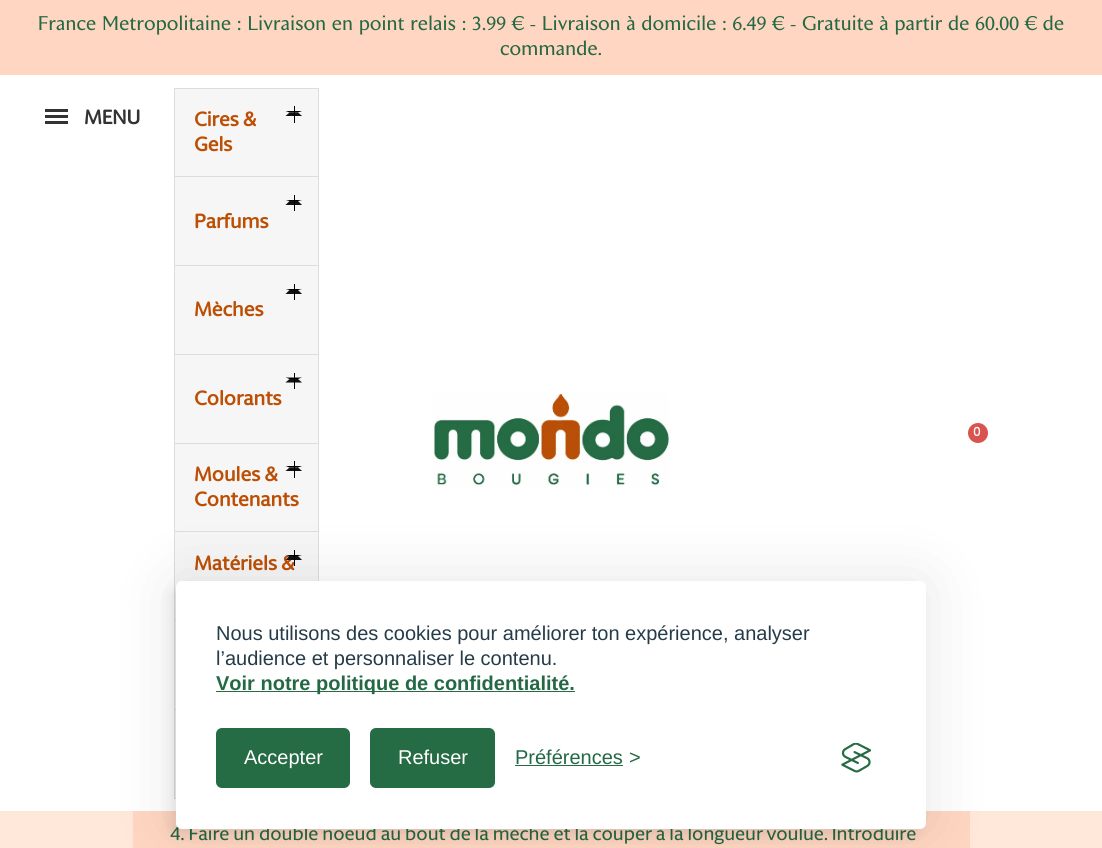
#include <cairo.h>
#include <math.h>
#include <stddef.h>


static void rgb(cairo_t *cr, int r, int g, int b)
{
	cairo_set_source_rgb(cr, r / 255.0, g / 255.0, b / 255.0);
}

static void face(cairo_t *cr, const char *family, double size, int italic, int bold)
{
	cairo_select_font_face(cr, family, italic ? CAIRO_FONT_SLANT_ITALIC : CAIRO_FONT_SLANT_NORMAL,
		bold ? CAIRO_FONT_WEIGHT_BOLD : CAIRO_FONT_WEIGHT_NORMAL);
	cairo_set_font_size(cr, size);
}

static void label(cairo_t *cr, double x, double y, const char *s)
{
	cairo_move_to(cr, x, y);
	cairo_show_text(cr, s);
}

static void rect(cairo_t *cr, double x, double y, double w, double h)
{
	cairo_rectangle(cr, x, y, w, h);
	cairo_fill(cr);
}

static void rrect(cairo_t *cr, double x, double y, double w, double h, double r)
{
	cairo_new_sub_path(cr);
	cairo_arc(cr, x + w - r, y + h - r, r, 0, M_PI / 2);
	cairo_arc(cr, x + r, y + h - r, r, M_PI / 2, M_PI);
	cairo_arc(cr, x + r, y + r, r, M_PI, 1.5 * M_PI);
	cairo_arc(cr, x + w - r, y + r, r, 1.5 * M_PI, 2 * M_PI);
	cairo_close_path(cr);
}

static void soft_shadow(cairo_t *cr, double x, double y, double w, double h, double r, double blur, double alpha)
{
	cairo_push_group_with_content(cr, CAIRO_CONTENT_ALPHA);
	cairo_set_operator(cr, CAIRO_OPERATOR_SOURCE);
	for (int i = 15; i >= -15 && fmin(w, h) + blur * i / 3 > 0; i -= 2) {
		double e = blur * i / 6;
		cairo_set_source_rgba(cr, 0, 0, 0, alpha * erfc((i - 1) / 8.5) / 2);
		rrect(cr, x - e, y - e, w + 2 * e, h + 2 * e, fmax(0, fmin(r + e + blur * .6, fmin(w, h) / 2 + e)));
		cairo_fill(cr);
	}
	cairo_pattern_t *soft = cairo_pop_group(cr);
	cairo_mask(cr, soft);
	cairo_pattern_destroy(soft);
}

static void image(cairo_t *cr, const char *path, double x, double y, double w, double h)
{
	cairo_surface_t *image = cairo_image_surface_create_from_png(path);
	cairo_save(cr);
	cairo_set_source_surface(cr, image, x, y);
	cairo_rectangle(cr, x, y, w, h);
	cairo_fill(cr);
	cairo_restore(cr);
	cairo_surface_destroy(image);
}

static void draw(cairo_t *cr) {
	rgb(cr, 255, 231, 218);
	cairo_paint(cr);
	rgb(cr, 255, 255, 255);
	rect(cr, 0, 75, 1102, 736);
	rgb(cr, 255, 214, 193);
	rect(cr, 0, 0, 1102, 75);
	image(cr, "image0.png", 39, 15, 1025, 20);
	image(cr, "image1.png", 500, 40, 101, 16);
	rgb(cr, 51, 51, 51);
	rect(cr, 45, 109, 23, 3);
	rect(cr, 45, 115, 23, 3);
	rect(cr, 45, 121, 23, 3);
	face(cr, "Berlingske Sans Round", 20, 0, 1);
	label(cr, 84, 124, "MENU");
	rgb(cr, 246, 246, 246);
	rect(cr, 175, 89, 143, 709);
	rgb(cr, 221, 221, 221);
	rect(cr, 174, 88, 145, 1);
	rect(cr, 318, 88, 1, 88);
	rect(cr, 174, 88, 1, 88);
	rgb(cr, 189, 79, 5);
	label(cr, 194, 126, "Cires &");
	label(cr, 194, 151, "Gels");
	rgb(cr, 0, 0, 0);
	cairo_new_path(cr);
	cairo_move_to(cr, 285.5, 111);
	cairo_line_to(cr, 302, 111);
	cairo_line_to(cr, 298, 112.5);
	cairo_line_to(cr, 289.5, 112.5);
	cairo_close_path(cr);
	cairo_fill(cr);
	rgb(cr, 17, 17, 17);
	cairo_new_path(cr);
	cairo_move_to(cr, 302, 116);
	cairo_line_to(cr, 285.5, 116);
	cairo_line_to(cr, 289.5, 112.5);
	cairo_line_to(cr, 298, 112.5);
	cairo_close_path(cr);
	cairo_fill(cr);
	rgb(cr, 0, 0, 0);
	rect(cr, 294, 106, 1, 17);
	rgb(cr, 221, 221, 221);
	rect(cr, 174, 176, 145, 1);
	rect(cr, 318, 176, 1, 89);
	rect(cr, 174, 176, 1, 89);
	rgb(cr, 0, 0, 0);
	cairo_new_path(cr);
	cairo_move_to(cr, 285.5, 200);
	cairo_line_to(cr, 302, 200);
	cairo_line_to(cr, 298, 201);
	cairo_line_to(cr, 289.5, 201);
	cairo_close_path(cr);
	cairo_fill(cr);
	rgb(cr, 17, 17, 17);
	cairo_new_path(cr);
	cairo_move_to(cr, 302, 205);
	cairo_line_to(cr, 285.5, 205);
	cairo_line_to(cr, 289.5, 201);
	cairo_line_to(cr, 298, 201);
	cairo_close_path(cr);
	cairo_fill(cr);
	rgb(cr, 0, 0, 0);
	rect(cr, 294, 195, 1, 16);
	rgb(cr, 189, 79, 5);
	label(cr, 194, 228, "Parfums");
	rgb(cr, 221, 221, 221);
	rect(cr, 174, 265, 145, 1);
	rect(cr, 318, 265, 1, 89);
	rect(cr, 174, 265, 1, 89);
	rgb(cr, 0, 0, 0);
	cairo_new_path(cr);
	cairo_move_to(cr, 285.5, 289);
	cairo_line_to(cr, 302, 289);
	cairo_line_to(cr, 298, 290);
	cairo_line_to(cr, 289.5, 290);
	cairo_close_path(cr);
	cairo_fill(cr);
	rgb(cr, 17, 17, 17);
	cairo_new_path(cr);
	cairo_move_to(cr, 302, 294);
	cairo_line_to(cr, 285.5, 294);
	cairo_line_to(cr, 289.5, 290);
	cairo_line_to(cr, 298, 290);
	cairo_close_path(cr);
	cairo_fill(cr);
	rgb(cr, 0, 0, 0);
	rect(cr, 294, 284, 1, 16);
	rgb(cr, 189, 79, 5);
	label(cr, 194, 316, "Mèches");
	rgb(cr, 221, 221, 221);
	rect(cr, 174, 354, 145, 1);
	rect(cr, 318, 354, 1, 89);
	rect(cr, 174, 354, 1, 89);
	rgb(cr, 0, 0, 0);
	cairo_new_path(cr);
	cairo_move_to(cr, 285.5, 377.5);
	cairo_line_to(cr, 302, 377.5);
	cairo_line_to(cr, 298, 379);
	cairo_line_to(cr, 289.5, 379);
	cairo_close_path(cr);
	cairo_fill(cr);
	rgb(cr, 17, 17, 17);
	cairo_new_path(cr);
	cairo_move_to(cr, 302, 382.5);
	cairo_line_to(cr, 285.5, 382.5);
	cairo_line_to(cr, 289.5, 379);
	cairo_line_to(cr, 298, 379);
	cairo_close_path(cr);
	cairo_fill(cr);
	rgb(cr, 0, 0, 0);
	rect(cr, 294, 373, 1, 16);
	rgb(cr, 189, 79, 5);
	label(cr, 194, 405, "Colorants");
	rgb(cr, 221, 221, 221);
	rect(cr, 174, 443, 145, 1);
	rect(cr, 318, 443, 1, 88);
	rect(cr, 174, 443, 1, 88);
	rgb(cr, 0, 0, 0);
	cairo_new_path(cr);
	cairo_move_to(cr, 285.5, 466);
	cairo_line_to(cr, 302, 466);
	cairo_line_to(cr, 298, 467.5);
	cairo_line_to(cr, 289.5, 467.5);
	cairo_close_path(cr);
	cairo_fill(cr);
	rgb(cr, 17, 17, 17);
	cairo_new_path(cr);
	cairo_move_to(cr, 302, 471);
	cairo_line_to(cr, 285.5, 471);
	cairo_line_to(cr, 289.5, 467.5);
	cairo_line_to(cr, 298, 467.5);
	cairo_close_path(cr);
	cairo_fill(cr);
	rgb(cr, 0, 0, 0);
	rect(cr, 294, 461, 1, 17);
	rgb(cr, 189, 79, 5);
	label(cr, 194, 481, "Moules &");
	label(cr, 194, 506, "Contenants");
	rgb(cr, 221, 221, 221);
	rect(cr, 174, 531, 145, 1);
	rect(cr, 318, 531, 1, 50);
	rect(cr, 174, 531, 1, 89);
	rgb(cr, 189, 79, 5);
	label(cr, 194, 570, "Matériels &");
	rgb(cr, 0, 0, 0);
	cairo_new_path(cr);
	cairo_move_to(cr, 285.5, 555);
	cairo_line_to(cr, 302, 555);
	cairo_line_to(cr, 298, 556);
	cairo_line_to(cr, 289.5, 556);
	cairo_close_path(cr);
	cairo_fill(cr);
	rgb(cr, 17, 17, 17);
	cairo_new_path(cr);
	cairo_move_to(cr, 302, 560);
	cairo_line_to(cr, 285.5, 560);
	cairo_line_to(cr, 289.5, 556);
	cairo_line_to(cr, 298, 556);
	cairo_close_path(cr);
	cairo_fill(cr);
	rgb(cr, 0, 0, 0);
	rect(cr, 294, 550, 1, 16);
	rgb(cr, 221, 221, 221);
	rect(cr, 174, 620, 2, 1);
	rect(cr, 174, 620, 1, 89);
	cairo_rectangle(cr, 174.5, 709.5, 144, 89);
	cairo_set_line_width(cr, 1);
	cairo_stroke(cr);
	image(cr, "image2.png", 433, 393, 237, 94);
	rgb(cr, 217, 83, 79);
	cairo_arc(cr, 978, 433, 10, 0, 2 * M_PI);
	cairo_fill(cr);
	face(cr, "Poppins", 12, 0, 1);
	rgb(cr, 255, 255, 255);
	label(cr, 973, 436, "0");
	rgb(cr, 255, 214, 193);
	rect(cr, 133, 811, 837, 37);
	face(cr, "Berlingske Sans Round Medium", 18.75, 0, 0);
	rgb(cr, 36, 104, 68);
	label(cr, 170, 840, "4. Faire un double noeud au bout de la mèche et la couper à la longueur voulue. Introduire");
	rgb(cr, 0, 0, 0);
	soft_shadow(cr, 176, 581, 750, 248, 6, 31, 0.1);
	soft_shadow(cr, 170, 588, 750, 247, 6, 6, 0.07);
	rgb(cr, 255, 255, 255);
	rrect(cr, 176, 581, 750, 248, 6);
	cairo_fill(cr);
	face(cr, "Liberation Sans", 20, 0, 0);
	rgb(cr, 37, 59, 72);
	label(cr, 216, 640, "Nous utilisons des cookies pour améliorer ton expérience, analyser");
	label(cr, 216, 665, "l’audience et personnaliser le contenu.");
	rgb(cr, 37, 107, 67);
	rect(cr, 216, 691, 359, 1);
	face(cr, "Liberation Sans", 20, 0, 1);
	rgb(cr, 36, 104, 68);
	label(cr, 216, 690, "Voir notre politique de confidentialité.");
	rgb(cr, 37, 107, 67);
	rrect(cr, 217.5, 729.5, 131, 57, 4.5);
	cairo_fill_preserve(cr);
	cairo_set_line_width(cr, 3);
	cairo_stroke(cr);
	face(cr, "Liberation Sans", 20, 0, 0);
	rgb(cr, 255, 255, 255);
	label(cr, 244, 764, "Accepter");
	rgb(cr, 37, 107, 67);
	rrect(cr, 371.5, 729.5, 122, 57, 4.5);
	cairo_fill_preserve(cr);
	cairo_stroke(cr);
	rgb(cr, 255, 255, 255);
	label(cr, 398, 764, "Refuser");
	rgb(cr, 36, 104, 68);
	label(cr, 515, 764, "Préférences");
	rgb(cr, 37, 107, 67);
	rect(cr, 515, 765, 108, 1);
	rgb(cr, 36, 104, 68);
	label(cr, 629, 764, ">");
	image(cr, "image3.png", 841, 743, 30, 30);
}

int main(void) {
	cairo_surface_t *surface = cairo_image_surface_create(CAIRO_FORMAT_RGB24, 1102, 848);
	cairo_t *cr = cairo_create(surface);
	cairo_font_options_t *options = cairo_font_options_create();
	cairo_font_options_set_hint_metrics(options, CAIRO_HINT_METRICS_OFF);
	cairo_font_options_set_hint_style(options, CAIRO_HINT_STYLE_NONE);
	cairo_set_font_options(cr, options);
	cairo_set_miter_limit(cr, 4);
	draw(cr);
	cairo_surface_write_to_png(surface, "render.png");
	cairo_font_options_destroy(options);
	cairo_destroy(cr);
	cairo_surface_destroy(surface);
	return 0;
}
